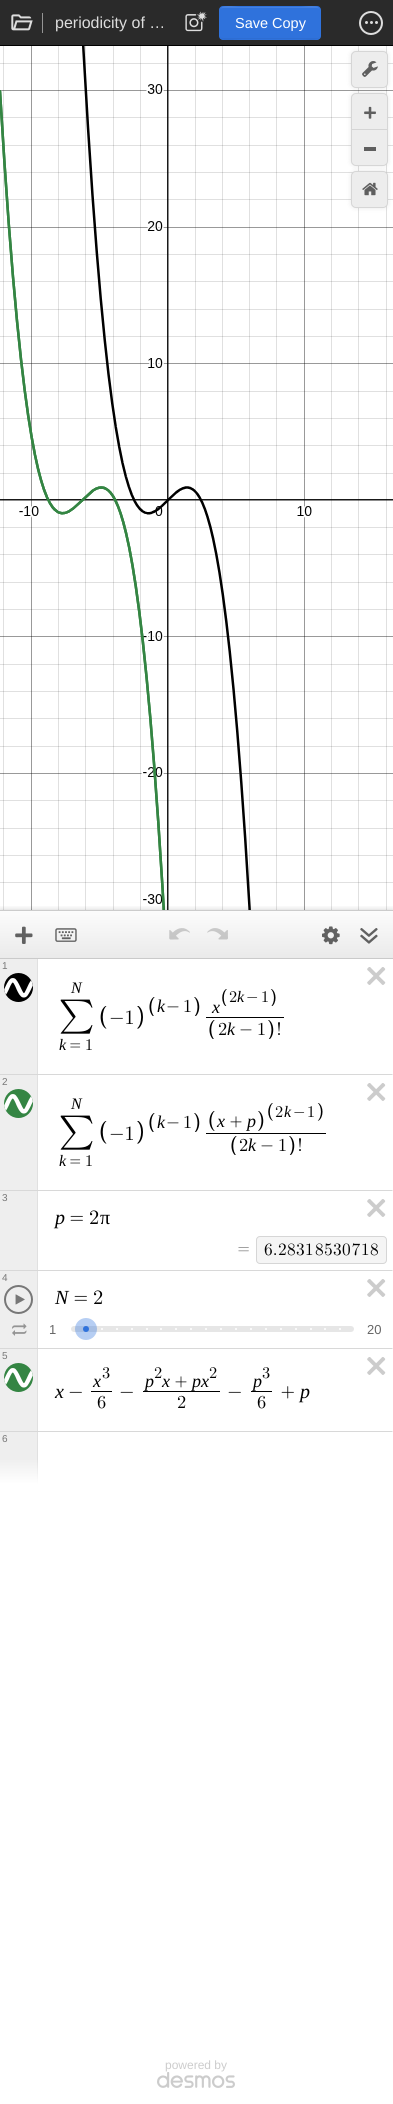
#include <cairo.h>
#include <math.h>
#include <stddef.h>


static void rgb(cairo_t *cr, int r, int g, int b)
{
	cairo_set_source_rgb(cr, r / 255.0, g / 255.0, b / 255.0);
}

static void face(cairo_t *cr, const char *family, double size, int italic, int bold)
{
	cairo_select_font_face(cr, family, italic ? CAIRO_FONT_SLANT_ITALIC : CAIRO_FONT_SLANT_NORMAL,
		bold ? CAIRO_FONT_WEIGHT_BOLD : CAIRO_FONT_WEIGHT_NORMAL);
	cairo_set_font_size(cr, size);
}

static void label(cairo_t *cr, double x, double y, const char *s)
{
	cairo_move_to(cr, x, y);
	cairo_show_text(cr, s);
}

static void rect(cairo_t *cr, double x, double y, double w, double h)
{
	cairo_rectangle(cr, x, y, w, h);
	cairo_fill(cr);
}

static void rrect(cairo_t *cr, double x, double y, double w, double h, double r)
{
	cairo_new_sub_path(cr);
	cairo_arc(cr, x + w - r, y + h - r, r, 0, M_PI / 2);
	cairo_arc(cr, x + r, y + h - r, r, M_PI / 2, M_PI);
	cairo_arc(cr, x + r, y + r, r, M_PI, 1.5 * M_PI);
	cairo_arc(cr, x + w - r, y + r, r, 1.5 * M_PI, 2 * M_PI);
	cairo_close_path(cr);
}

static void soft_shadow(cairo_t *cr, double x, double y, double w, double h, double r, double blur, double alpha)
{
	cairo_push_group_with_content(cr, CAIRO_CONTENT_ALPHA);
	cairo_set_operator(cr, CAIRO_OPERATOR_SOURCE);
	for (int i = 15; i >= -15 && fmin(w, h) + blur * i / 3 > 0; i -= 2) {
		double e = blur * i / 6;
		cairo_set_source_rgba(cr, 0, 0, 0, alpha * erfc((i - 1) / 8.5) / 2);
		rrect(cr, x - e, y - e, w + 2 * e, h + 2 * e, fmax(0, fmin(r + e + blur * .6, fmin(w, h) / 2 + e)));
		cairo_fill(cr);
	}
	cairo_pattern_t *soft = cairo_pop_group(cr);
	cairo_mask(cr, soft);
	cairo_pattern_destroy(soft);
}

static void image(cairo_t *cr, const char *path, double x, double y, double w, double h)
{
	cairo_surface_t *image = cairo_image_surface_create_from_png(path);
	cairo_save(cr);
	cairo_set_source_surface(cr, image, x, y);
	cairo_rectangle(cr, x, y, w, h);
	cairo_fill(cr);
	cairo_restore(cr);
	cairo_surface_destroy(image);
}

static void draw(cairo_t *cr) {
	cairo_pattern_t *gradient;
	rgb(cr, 255, 255, 255);
	cairo_paint(cr);
	rgb(cr, 42, 42, 42);
	rect(cr, 0, 0, 393, 45);
	rgb(cr, 0, 0, 0);
	rect(cr, 0, 45, 393, 1);
	image(cr, "image0.png", 11, 14, 22, 17);
	rgb(cr, 148, 148, 148);
	rect(cr, 42, 13, 1, 20);
	face(cr, "Liberation Sans", 16, 0, 0);
	rgb(cr, 221, 221, 221);
	label(cr, 55, 28, "periodicity of …");
	image(cr, "image1.png", 185, 11, 22, 21);
	rgb(cr, 47, 114, 220);
	rrect(cr, 219, 6, 102, 34, 4);
	cairo_fill(cr);
	rgb(cr, 45, 109, 211);
	cairo_new_path(cr);
	cairo_move_to(cr, 220, 35);
	cairo_curve_to(cr, 220, 43, 236, 39, 239, 39);
	cairo_line_to(cr, 301, 39);
	cairo_curve_to(cr, 304, 39, 320, 43, 320, 35);
	cairo_curve_to(cr, 320, 37, 319, 38, 317, 38);
	cairo_line_to(cr, 223, 38);
	cairo_curve_to(cr, 221, 38, 220, 37, 220, 35);
	cairo_close_path(cr);
	cairo_fill(cr);
	rgb(cr, 68, 128, 224);
	cairo_new_path(cr);
	cairo_move_to(cr, 223, 8);
	cairo_line_to(cr, 317, 8);
	cairo_curve_to(cr, 319, 8, 320, 9, 320, 11);
	cairo_curve_to(cr, 320, 3, 304, 7, 301, 7);
	cairo_line_to(cr, 239, 7);
	cairo_curve_to(cr, 236, 7, 220, 3, 220, 11);
	cairo_curve_to(cr, 220, 9, 221, 8, 223, 8);
	cairo_close_path(cr);
	cairo_fill(cr);
	face(cr, "Liberation Sans", 14.5, 0, 0);
	rgb(cr, 255, 255, 255);
	label(cr, 235, 28, "Save Copy");
	cairo_new_path(cr);
	cairo_arc(cr, 371, 23, 11, 0, 2 * M_PI);
	rgb(cr, 221, 221, 221);
	cairo_stroke(cr);
	cairo_arc(cr, 366.5, 22.5, 1.5, 0, 2 * M_PI);
	cairo_fill(cr);
	cairo_arc(cr, 371.5, 22.5, 1.5, 0, 2 * M_PI);
	cairo_fill(cr);
	cairo_arc(cr, 376.5, 22.5, 1.5, 0, 2 * M_PI);
	cairo_fill(cr);
	image(cr, "image5.png", 0, 46, 393, 864);
	rgb(cr, 0, 0, 0);
	soft_shadow(cr, 351, 93, 37, 73, 5, 2.5, 0.1);
	rgb(cr, 237, 237, 237);
	rrect(cr, 351, 93, 37, 73, 5);
	cairo_fill(cr);
	rrect(cr, 351.5, 93.5, 36, 72, 4.5);
	cairo_set_source_rgba(cr, 0, 0, 0, 0.1);
	cairo_set_line_width(cr, 1);
	cairo_stroke(cr);
	rgb(cr, 0, 0, 0);
	soft_shadow(cr, 351, 51, 37, 37, 5, 2.5, 0.1);
	rgb(cr, 237, 237, 237);
	rrect(cr, 351, 51, 37, 37, 5);
	cairo_fill(cr);
	rrect(cr, 351.5, 51.5, 36, 36, 4.5);
	cairo_set_source_rgba(cr, 0, 0, 0, 0.1);
	cairo_stroke(cr);
	image(cr, "image2.png", 362, 61, 16, 16);
	rgb(cr, 213, 213, 213);
	rect(cr, 352, 129, 35, 1);
	image(cr, "image3.png", 364, 106, 12, 13);
	rgb(cr, 95, 95, 95);
	rect(cr, 364, 147, 12, 4);
	rgb(cr, 0, 0, 0);
	soft_shadow(cr, 351, 171, 37, 37, 5, 2.5, 0.1);
	rgb(cr, 237, 237, 237);
	rrect(cr, 351, 171, 37, 37, 5);
	cairo_fill(cr);
	rrect(cr, 351.5, 171.5, 36, 36, 4.5);
	cairo_set_source_rgba(cr, 0, 0, 0, 0.1);
	cairo_stroke(cr);
	image(cr, "image4.png", 362, 182, 16, 14);
	cairo_save(cr);
	cairo_rectangle(cr, 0, 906, 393, 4);
	cairo_clip(cr);
	rgb(cr, 0, 0, 0);
	soft_shadow(cr, 0, 910, 393, 1194, 0, 3, 0.2);
	cairo_restore(cr);
	rgb(cr, 204, 204, 204);
	rect(cr, 0, 910, 393, 1);
	gradient = cairo_pattern_create_linear(197, 911, 197, 958);
	cairo_pattern_add_color_stop_rgba(gradient, 0, 0.988, 0.988, 0.988, 1);
	cairo_pattern_add_color_stop_rgba(gradient, 1, 0.918, 0.918, 0.918, 1);
	cairo_set_source(cr, gradient);
	cairo_pattern_destroy(gradient);
	rect(cr, 0, 911, 393, 47);
	rgb(cr, 202, 202, 202);
	rect(cr, 0, 958, 393, 1);
	image(cr, "image6.png", 15, 926, 18, 18);
	image(cr, "image7.png", 55, 928, 22, 14);
	image(cr, "image8.png", 169, 928, 21, 12);
	image(cr, "image9.png", 207, 928, 21, 12);
	image(cr, "image10.png", 322, 926, 18, 19);
	image(cr, "image11.png", 360, 928, 18, 16);
	rgb(cr, 238, 238, 238);
	rect(cr, 0, 959, 37, 115);
	rgb(cr, 224, 224, 224);
	rect(cr, 37, 959, 1, 115);
	face(cr, "Liberation Sans", 10, 0, 0);
	rgb(cr, 119, 119, 119);
	label(cr, 2, 969, "1");
	rgb(cr, 0, 0, 0);
	cairo_new_path(cr);
	cairo_arc(cr, 18.5, 987.5, 14.5, 0, 2 * M_PI);
	cairo_fill(cr);
	image(cr, "image12.png", 4, 978, 29, 20);
	image(cr, "image13.png", 367, 967, 19, 18);
	face(cr, "Liberation Serif", 16, 1, 0);
	label(cr, 71, 993, "N");
	face(cr, "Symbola", 40, 0, 0);
	label(cr, 60, 1028, "∑");
	face(cr, "Liberation Serif", 16, 1, 0);
	label(cr, 59, 1050, "k");
	face(cr, "Symbola", 16, 0, 0);
	label(cr, 69, 1050, "=");
	label(cr, 85, 1050, "1");
	image(cr, "image14.png", 149, 997, 6, 19);
	face(cr, "Liberation Serif", 18, 1, 0);
	label(cr, 157, 1012, "k");
	face(cr, "Symbola", 18, 0, 0);
	label(cr, 166, 1012, "−");
	label(cr, 183, 1012, "1");
	image(cr, "image15.png", 194, 997, 6, 19);
	image(cr, "image16.png", 222, 989, 5, 17);
	face(cr, "Symbola", 16, 0, 0);
	label(cr, 229, 1002, "2");
	face(cr, "Liberation Serif", 16, 1, 0);
	label(cr, 237, 1002, "k");
	face(cr, "Symbola", 16, 0, 0);
	label(cr, 246, 1002, "−");
	label(cr, 261, 1002, "1");
	image(cr, "image17.png", 270, 989, 6, 17);
	face(cr, "Liberation Serif", 18, 1, 0);
	label(cr, 212, 1013, "x");
	rect(cr, 206, 1017, 78, 1);
	image(cr, "image14.png", 209, 1020, 6, 19);
	face(cr, "Symbola", 18, 0, 0);
	label(cr, 218, 1035, "2");
	face(cr, "Liberation Serif", 18, 1, 0);
	label(cr, 227, 1035, "k");
	face(cr, "Symbola", 18, 0, 0);
	label(cr, 239, 1035, "−");
	label(cr, 257, 1035, "1");
	image(cr, "image15.png", 268, 1020, 6, 19);
	label(cr, 276, 1035, "!");
	cairo_new_path(cr);
	cairo_move_to(cr, 106.5, 1006);
	cairo_curve_to(cr, 101.5, 1010, 101.5, 1024, 106.5, 1028.5);
	cairo_line_to(cr, 105.5, 1028.5);
	cairo_curve_to(cr, 99, 1024, 99, 1010, 105.5, 1006);
	cairo_move_to(cr, 137, 1006);
	cairo_curve_to(cr, 142.5, 1010, 142.5, 1024, 137, 1028.5);
	cairo_line_to(cr, 138.5, 1028.5);
	cairo_curve_to(cr, 144.5, 1024, 144.5, 1010, 138.5, 1006);
	cairo_fill(cr);
	face(cr, "Symbola", 20, 0, 0);
	label(cr, 109, 1024, "−1");
	rgb(cr, 216, 216, 216);
	cairo_new_path(cr);
	cairo_move_to(cr, 0, 1074);
	cairo_line_to(cr, 393, 1074);
	cairo_line_to(cr, 392, 1075);
	cairo_line_to(cr, 0, 1075);
	cairo_close_path(cr);
	cairo_fill(cr);
	rgb(cr, 238, 238, 238);
	rect(cr, 0, 1075, 37, 115);
	rgb(cr, 224, 224, 224);
	rect(cr, 37, 1075, 1, 115);
	face(cr, "Liberation Sans", 10, 0, 0);
	rgb(cr, 119, 119, 119);
	label(cr, 2, 1085, "2");
	rgb(cr, 52, 133, 67);
	cairo_new_path(cr);
	cairo_arc(cr, 18.5, 1103.5, 14.5, 0, 2 * M_PI);
	cairo_fill(cr);
	image(cr, "image18.png", 4, 1094, 29, 20);
	image(cr, "image13.png", 367, 1083, 19, 18);
	face(cr, "Liberation Serif", 16, 1, 0);
	rgb(cr, 0, 0, 0);
	label(cr, 71, 1109, "N");
	face(cr, "Symbola", 40, 0, 0);
	label(cr, 60, 1144, "∑");
	face(cr, "Liberation Serif", 16, 1, 0);
	label(cr, 59, 1166, "k");
	face(cr, "Symbola", 16, 0, 0);
	label(cr, 69, 1166, "=");
	label(cr, 85, 1166, "1");
	image(cr, "image14.png", 149, 1113, 6, 19);
	face(cr, "Liberation Serif", 18, 1, 0);
	label(cr, 157, 1128, "k");
	face(cr, "Symbola", 18, 0, 0);
	label(cr, 166, 1128, "−");
	label(cr, 183, 1128, "1");
	image(cr, "image15.png", 194, 1113, 6, 19);
	image(cr, "image19.png", 268, 1103, 5, 18);
	face(cr, "Symbola", 16, 0, 0);
	label(cr, 275, 1117, "2");
	face(cr, "Liberation Serif", 16, 1, 0);
	label(cr, 284, 1117, "k");
	face(cr, "Symbola", 16, 0, 0);
	label(cr, 293, 1117, "−");
	label(cr, 307, 1117, "1");
	image(cr, "image20.png", 317, 1103, 6, 18);
	image(cr, "image21.png", 209, 1111, 6, 20);
	face(cr, "Liberation Serif", 18, 1, 0);
	label(cr, 217, 1127, "x");
	face(cr, "Symbola", 18, 0, 0);
	label(cr, 229, 1127, "+");
	face(cr, "Liberation Serif", 18, 1, 0);
	label(cr, 247, 1127, "p");
	image(cr, "image22.png", 258, 1111, 6, 20);
	rect(cr, 206, 1133, 120, 1);
	image(cr, "image14.png", 231, 1136, 6, 19);
	face(cr, "Symbola", 18, 0, 0);
	label(cr, 239, 1151, "2");
	face(cr, "Liberation Serif", 18, 1, 0);
	label(cr, 248, 1151, "k");
	face(cr, "Symbola", 18, 0, 0);
	label(cr, 260, 1151, "−");
	label(cr, 278, 1151, "1");
	image(cr, "image15.png", 289, 1136, 6, 19);
	label(cr, 297, 1151, "!");
	cairo_new_path(cr);
	cairo_move_to(cr, 106.5, 1121);
	cairo_curve_to(cr, 101.5, 1125, 101.5, 1139, 106.5, 1143.5);
	cairo_line_to(cr, 105.5, 1143.5);
	cairo_curve_to(cr, 99, 1139, 99, 1125, 105.5, 1121);
	cairo_move_to(cr, 137, 1121);
	cairo_curve_to(cr, 142.5, 1125, 142.5, 1139, 137, 1143.5);
	cairo_line_to(cr, 138.5, 1143.5);
	cairo_curve_to(cr, 144.5, 1139, 144.5, 1125, 138.5, 1121);
	cairo_fill(cr);
	face(cr, "Symbola", 20, 0, 0);
	label(cr, 109, 1140, "−1");
	rgb(cr, 216, 216, 216);
	cairo_new_path(cr);
	cairo_move_to(cr, 0, 1190);
	cairo_line_to(cr, 393, 1190);
	cairo_line_to(cr, 392, 1191);
	cairo_line_to(cr, 0, 1191);
	cairo_close_path(cr);
	cairo_fill(cr);
	rgb(cr, 238, 238, 238);
	rect(cr, 0, 1191, 37, 79);
	rgb(cr, 224, 224, 224);
	rect(cr, 37, 1191, 1, 79);
	face(cr, "Liberation Sans", 10, 0, 0);
	rgb(cr, 119, 119, 119);
	label(cr, 2, 1201, "3");
	image(cr, "image13.png", 367, 1199, 19, 18);
	face(cr, "Liberation Serif", 20, 1, 0);
	rgb(cr, 0, 0, 0);
	label(cr, 55, 1224, "p");
	face(cr, "Symbola", 20, 0, 0);
	label(cr, 69, 1224, "=");
	label(cr, 89, 1224, "2");
	face(cr, "Liberation Serif", 20, 0, 0);
	label(cr, 100, 1224, "π");
	face(cr, "Symbola", 17, 0, 0);
	rgb(cr, 119, 119, 119);
	label(cr, 237, 1254, "=");
	rgb(cr, 245, 245, 245);
	rrect(cr, 256, 1236, 131, 28, 4);
	cairo_fill(cr);
	rrect(cr, 256.5, 1236.5, 130, 27, 3.5);
	cairo_set_source_rgba(cr, 0.808, 0.808, 0.808, 0.8);
	cairo_stroke(cr);
	rgb(cr, 0, 0, 0);
	label(cr, 264, 1255, "6");
	label(cr, 273, 1255, ".");
	label(cr, 278, 1255, "2");
	label(cr, 287, 1255, "8");
	label(cr, 296, 1255, "3");
	label(cr, 305, 1255, "1");
	label(cr, 315, 1255, "8");
	label(cr, 324, 1255, "5");
	label(cr, 333, 1255, "3");
	label(cr, 342, 1255, "0");
	label(cr, 352, 1255, "7");
	label(cr, 361, 1255, "1");
	label(cr, 370, 1255, "8");
	rgb(cr, 216, 216, 216);
	cairo_new_path(cr);
	cairo_move_to(cr, 0, 1270);
	cairo_line_to(cr, 393, 1270);
	cairo_line_to(cr, 392, 1271);
	cairo_line_to(cr, 0, 1271);
	cairo_close_path(cr);
	cairo_fill(cr);
	rgb(cr, 238, 238, 238);
	rect(cr, 0, 1271, 37, 77);
	rgb(cr, 224, 224, 224);
	rect(cr, 37, 1271, 1, 77);
	face(cr, "Liberation Sans", 10, 0, 0);
	rgb(cr, 119, 119, 119);
	label(cr, 2, 1281, "4");
	cairo_new_path(cr);
	cairo_arc(cr, 18.5, 1299.5, 13.5, 0, 2 * M_PI);
	cairo_set_line_width(cr, 2);
	cairo_stroke(cr);
	image(cr, "image23.png", 15, 1294, 10, 11);
	image(cr, "image24.png", 12, 1323, 15, 13);
	face(cr, "Liberation Serif", 20, 1, 0);
	rgb(cr, 0, 0, 0);
	label(cr, 55, 1304, "N");
	face(cr, "Symbola", 20, 0, 0);
	label(cr, 73, 1304, "=");
	label(cr, 93, 1304, "2");
	image(cr, "image13.png", 367, 1279, 19, 18);
	face(cr, "Liberation Sans", 13, 0, 0);
	rgb(cr, 102, 102, 102);
	label(cr, 49, 1334, "1");
	rgb(cr, 230, 230, 230);
	rrect(cr, 71, 1326, 283, 6, 3);
	cairo_fill(cr);
	cairo_set_source_rgba(cr, 0.184, 0.447, 0.863, 0.35);
	cairo_arc(cr, 86, 1329, 11, 0, 2 * M_PI);
	cairo_fill(cr);
	rgb(cr, 47, 114, 220);
	cairo_arc(cr, 86, 1329, 3, 0, 2 * M_PI);
	cairo_fill(cr);
	rgb(cr, 255, 255, 255);
	cairo_arc(cr, 102, 1329, 1, 0, 2 * M_PI);
	cairo_fill(cr);
	cairo_arc(cr, 117, 1329, 1, 0, 2 * M_PI);
	cairo_fill(cr);
	cairo_arc(cr, 132, 1329, 1, 0, 2 * M_PI);
	cairo_fill(cr);
	cairo_arc(cr, 147, 1329, 1, 0, 2 * M_PI);
	cairo_fill(cr);
	cairo_arc(cr, 161, 1329, 1, 0, 2 * M_PI);
	cairo_fill(cr);
	cairo_arc(cr, 176, 1329, 1, 0, 2 * M_PI);
	cairo_fill(cr);
	cairo_arc(cr, 191, 1329, 1, 0, 2 * M_PI);
	cairo_fill(cr);
	cairo_arc(cr, 206, 1329, 1, 0, 2 * M_PI);
	cairo_fill(cr);
	cairo_arc(cr, 221, 1329, 1, 0, 2 * M_PI);
	cairo_fill(cr);
	cairo_arc(cr, 236, 1329, 1, 0, 2 * M_PI);
	cairo_fill(cr);
	cairo_arc(cr, 251, 1329, 1, 0, 2 * M_PI);
	cairo_fill(cr);
	cairo_arc(cr, 266, 1329, 1, 0, 2 * M_PI);
	cairo_fill(cr);
	cairo_arc(cr, 281, 1329, 1, 0, 2 * M_PI);
	cairo_fill(cr);
	cairo_arc(cr, 296, 1329, 1, 0, 2 * M_PI);
	cairo_fill(cr);
	cairo_arc(cr, 311, 1329, 1, 0, 2 * M_PI);
	cairo_fill(cr);
	cairo_arc(cr, 325, 1329, 1, 0, 2 * M_PI);
	cairo_fill(cr);
	cairo_arc(cr, 340, 1329, 1, 0, 2 * M_PI);
	cairo_fill(cr);
	rgb(cr, 102, 102, 102);
	label(cr, 367, 1334, "20");
	rgb(cr, 216, 216, 216);
	cairo_new_path(cr);
	cairo_move_to(cr, 0, 1348);
	cairo_line_to(cr, 393, 1348);
	cairo_line_to(cr, 392, 1349);
	cairo_line_to(cr, 0, 1349);
	cairo_close_path(cr);
	cairo_fill(cr);
	rgb(cr, 238, 238, 238);
	rect(cr, 0, 1349, 37, 82);
	rgb(cr, 224, 224, 224);
	rect(cr, 37, 1349, 1, 82);
	face(cr, "Liberation Sans", 10, 0, 0);
	rgb(cr, 119, 119, 119);
	label(cr, 2, 1359, "5");
	rgb(cr, 52, 133, 67);
	cairo_new_path(cr);
	cairo_arc(cr, 18.5, 1377.5, 14.5, 0, 2 * M_PI);
	cairo_fill(cr);
	image(cr, "image18.png", 4, 1368, 29, 20);
	face(cr, "Liberation Serif", 20, 1, 0);
	rgb(cr, 0, 0, 0);
	label(cr, 55, 1398, "x");
	face(cr, "Symbola", 20, 0, 0);
	label(cr, 68, 1398, "−");
	face(cr, "Symbola", 16, 0, 0);
	label(cr, 102, 1378, "3");
	face(cr, "Liberation Serif", 18, 1, 0);
	label(cr, 93, 1387, "x");
	rect(cr, 91, 1391, 21, 1);
	face(cr, "Symbola", 18, 0, 0);
	label(cr, 97, 1408, "6");
	face(cr, "Symbola", 20, 0, 0);
	label(cr, 119, 1398, "−");
	face(cr, "Symbola", 16, 0, 0);
	label(cr, 154, 1378, "2");
	label(cr, 209, 1378, "2");
	face(cr, "Liberation Serif", 18, 1, 0);
	label(cr, 145, 1387, "p");
	label(cr, 162, 1387, "x");
	face(cr, "Symbola", 18, 0, 0);
	label(cr, 174, 1387, "+");
	face(cr, "Liberation Serif", 18, 1, 0);
	label(cr, 192, 1387, "px");
	rect(cr, 143, 1391, 77, 1);
	face(cr, "Symbola", 18, 0, 0);
	label(cr, 177, 1408, "2");
	face(cr, "Symbola", 20, 0, 0);
	label(cr, 227, 1398, "−");
	face(cr, "Symbola", 16, 0, 0);
	label(cr, 262, 1378, "3");
	face(cr, "Liberation Serif", 18, 1, 0);
	label(cr, 253, 1387, "p");
	rect(cr, 251, 1391, 21, 1);
	face(cr, "Symbola", 18, 0, 0);
	label(cr, 257, 1408, "6");
	face(cr, "Symbola", 20, 0, 0);
	label(cr, 280, 1398, "+");
	face(cr, "Liberation Serif", 20, 1, 0);
	label(cr, 300, 1398, "p");
	image(cr, "image13.png", 367, 1357, 19, 18);
	rgb(cr, 216, 216, 216);
	cairo_new_path(cr);
	cairo_move_to(cr, 0, 1431);
	cairo_line_to(cr, 393, 1431);
	cairo_line_to(cr, 392, 1432);
	cairo_line_to(cr, 0, 1432);
	cairo_close_path(cr);
	cairo_fill(cr);
	rgb(cr, 238, 238, 238);
	rect(cr, 0, 1432, 37, 52);
	rgb(cr, 224, 224, 224);
	rect(cr, 37, 1432, 1, 52);
	face(cr, "Liberation Sans", 10, 0, 0);
	rgb(cr, 119, 119, 119);
	label(cr, 2, 1442, "6");
	gradient = cairo_pattern_create_linear(22, 1484, 22, 1432);
	cairo_pattern_add_color_stop_rgba(gradient, 0, 1, 1, 1, 1);
	cairo_pattern_add_color_stop_rgba(gradient, 0.5, 1, 1, 1, 0);
	cairo_set_source(cr, gradient);
	cairo_pattern_destroy(gradient);
	rect(cr, 0, 1460, 38, 24);
	face(cr, "Liberation Sans", 12, 0, 0);
	rgb(cr, 204, 204, 204);
	label(cr, 165, 2069, "powered by");
	image(cr, "image25.png", 157, 2072, 78, 16);
}

int main(void) {
	cairo_surface_t *surface = cairo_image_surface_create(CAIRO_FORMAT_RGB24, 393, 2104);
	cairo_t *cr = cairo_create(surface);
	cairo_font_options_t *options = cairo_font_options_create();
	cairo_font_options_set_hint_metrics(options, CAIRO_HINT_METRICS_OFF);
	cairo_font_options_set_hint_style(options, CAIRO_HINT_STYLE_NONE);
	cairo_set_font_options(cr, options);
	cairo_set_miter_limit(cr, 4);
	draw(cr);
	cairo_surface_write_to_png(surface, "render.png");
	cairo_font_options_destroy(options);
	cairo_destroy(cr);
	cairo_surface_destroy(surface);
	return 0;
}
